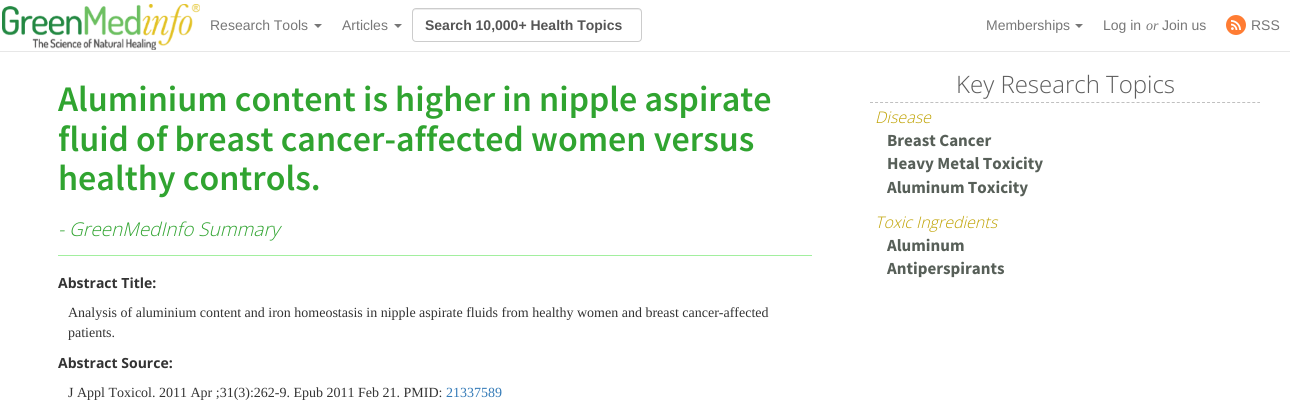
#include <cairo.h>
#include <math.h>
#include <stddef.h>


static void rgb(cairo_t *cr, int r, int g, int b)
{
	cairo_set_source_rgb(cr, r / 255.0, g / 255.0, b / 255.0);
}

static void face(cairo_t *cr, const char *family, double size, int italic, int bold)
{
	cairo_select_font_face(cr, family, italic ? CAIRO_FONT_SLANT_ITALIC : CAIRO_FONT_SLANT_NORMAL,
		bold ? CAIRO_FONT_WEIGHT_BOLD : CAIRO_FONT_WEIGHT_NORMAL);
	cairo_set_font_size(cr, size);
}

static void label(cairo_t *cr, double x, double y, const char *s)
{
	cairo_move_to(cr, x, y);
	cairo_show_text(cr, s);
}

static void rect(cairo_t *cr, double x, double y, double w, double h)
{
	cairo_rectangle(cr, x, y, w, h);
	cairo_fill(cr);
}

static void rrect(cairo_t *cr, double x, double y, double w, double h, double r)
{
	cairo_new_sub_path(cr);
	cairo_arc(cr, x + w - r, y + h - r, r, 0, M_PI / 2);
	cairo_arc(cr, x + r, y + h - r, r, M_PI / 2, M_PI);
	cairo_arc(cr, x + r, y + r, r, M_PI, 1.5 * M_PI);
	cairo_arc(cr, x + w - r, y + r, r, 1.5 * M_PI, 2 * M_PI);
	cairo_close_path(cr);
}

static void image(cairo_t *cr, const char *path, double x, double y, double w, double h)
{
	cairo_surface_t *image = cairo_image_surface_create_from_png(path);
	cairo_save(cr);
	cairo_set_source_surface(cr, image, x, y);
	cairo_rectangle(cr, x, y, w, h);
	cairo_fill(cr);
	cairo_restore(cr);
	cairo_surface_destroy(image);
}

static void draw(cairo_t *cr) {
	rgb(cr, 255, 255, 255);
	cairo_paint(cr);
	rgb(cr, 231, 231, 231);
	rect(cr, 0, 51, 1290, 1);
	image(cr, "image0.png", 2, 4, 198, 46);
	face(cr, "Liberation Sans", 14, 0, 0);
	rgb(cr, 119, 119, 119);
	label(cr, 210, 30, "Research Tools");
	cairo_new_path(cr);
	cairo_move_to(cr, 314, 24);
	cairo_line_to(cr, 322, 24);
	cairo_line_to(cr, 318, 28);
	cairo_close_path(cr);
	cairo_fill(cr);
	label(cr, 342, 30, "Articles");
	cairo_new_path(cr);
	cairo_move_to(cr, 394, 24);
	cairo_line_to(cr, 402, 24);
	cairo_line_to(cr, 398, 28);
	cairo_close_path(cr);
	cairo_fill(cr);
	rgb(cr, 236, 236, 236);
	cairo_new_path(cr);
	cairo_move_to(cr, 416, 10);
	cairo_line_to(cr, 638, 10);
	cairo_curve_to(cr, 640, 10, 641, 11, 641, 13);
	cairo_line_to(cr, 641, 12);
	cairo_curve_to(cr, 641, 10, 640, 9, 638, 9);
	cairo_line_to(cr, 416, 9);
	cairo_curve_to(cr, 414, 9, 413, 10, 413, 12);
	cairo_line_to(cr, 413, 13);
	cairo_curve_to(cr, 413, 11, 414, 10, 416, 10);
	cairo_close_path(cr);
	cairo_fill(cr);
	rrect(cr, 412.5, 8.5, 229, 33, 3.5);
	rgb(cr, 204, 204, 204);
	cairo_set_line_width(cr, 1);
	cairo_stroke(cr);
	face(cr, "Liberation Sans", 14, 0, 1);
	rgb(cr, 85, 85, 85);
	label(cr, 425, 30, "Search 10,000+ Health Topics");
	face(cr, "Liberation Sans", 14, 0, 0);
	rgb(cr, 119, 119, 119);
	label(cr, 986, 30, "Memberships");
	cairo_new_path(cr);
	cairo_move_to(cr, 1075, 24);
	cairo_line_to(cr, 1083, 24);
	cairo_line_to(cr, 1079, 28);
	cairo_close_path(cr);
	cairo_fill(cr);
	label(cr, 1103, 30, "Log in");
	face(cr, "Liberation Serif", 14, 1, 0);
	label(cr, 1146, 30, "or");
	face(cr, "Liberation Sans", 14, 0, 0);
	label(cr, 1162, 30, "Join us");
	image(cr, "image1.png", 1226, 15, 20, 20);
	label(cr, 1251, 30, "RSS");
	rgb(cr, 162, 239, 159);
	rect(cr, 58, 255, 754, 1);
	face(cr, "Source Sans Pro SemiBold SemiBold", 36, 0, 0);
	rgb(cr, 48, 164, 48);
	label(cr, 58, 111, "Aluminium content is higher in nipple aspirate");
	label(cr, 58, 151, "fluid of breast cancer-affected women versus");
	label(cr, 58, 190, "healthy controls.");
	face(cr, "Open Sans Light", 19, 1, 0);
	label(cr, 58, 236, "- GreenMedInfo Summary");
	face(cr, "Open Sans", 14, 0, 1);
	rgb(cr, 51, 51, 51);
	label(cr, 58, 288, "Abstract Title:");
	face(cr, "Liberation Serif", 14, 0, 0);
	label(cr, 68, 317, "Analysis of aluminium content and iron homeostasis in nipple aspirate fluids from healthy women and breast cancer-affected");
	label(cr, 68, 337, "patients.");
	face(cr, "Open Sans", 14, 0, 1);
	label(cr, 58, 368, "Abstract Source:");
	face(cr, "Liberation Serif", 14, 0, 0);
	label(cr, 68, 397, "J Appl Toxicol. 2011 Apr ;31(3):262-9. Epub 2011 Feb 21. PMID:");
	rgb(cr, 51, 122, 183);
	label(cr, 446, 397, "21337589");
	cairo_new_path(cr);
	cairo_move_to(cr, 870, 102.5);
	cairo_line_to(cr, 1260, 102.5);
	rgb(cr, 192, 192, 192);
	cairo_set_dash(cr, (double[]){3, 2.03}, 2, 0);
	cairo_stroke(cr);
	face(cr, "Open Sans Light", 24, 0, 0);
	rgb(cr, 94, 94, 94);
	label(cr, 956, 93, "Key Research Topics");
	face(cr, "Open Sans Light", 16, 1, 0);
	rgb(cr, 191, 162, 2);
	label(cr, 875, 123, "Disease");
	face(cr, "Source Sans Pro", 17, 0, 1);
	rgb(cr, 87, 95, 88);
	label(cr, 887, 146, "Breast Cancer");
	label(cr, 887, 169, "Heavy Metal Toxicity");
	label(cr, 887, 193, "Aluminum Toxicity");
	face(cr, "Open Sans Light", 16, 1, 0);
	rgb(cr, 191, 162, 2);
	label(cr, 875, 228, "Toxic Ingredients");
	face(cr, "Source Sans Pro", 17, 0, 1);
	rgb(cr, 87, 95, 88);
	label(cr, 887, 251, "Aluminum");
	label(cr, 887, 274, "Antiperspirants");
}

int main(void) {
	cairo_surface_t *surface = cairo_image_surface_create(CAIRO_FORMAT_RGB24, 1290, 411);
	cairo_t *cr = cairo_create(surface);
	cairo_font_options_t *options = cairo_font_options_create();
	cairo_font_options_set_hint_metrics(options, CAIRO_HINT_METRICS_OFF);
	cairo_font_options_set_hint_style(options, CAIRO_HINT_STYLE_NONE);
	cairo_set_font_options(cr, options);
	cairo_set_miter_limit(cr, 4);
	draw(cr);
	cairo_surface_write_to_png(surface, "render.png");
	cairo_font_options_destroy(options);
	cairo_destroy(cr);
	cairo_surface_destroy(surface);
	return 0;
}
